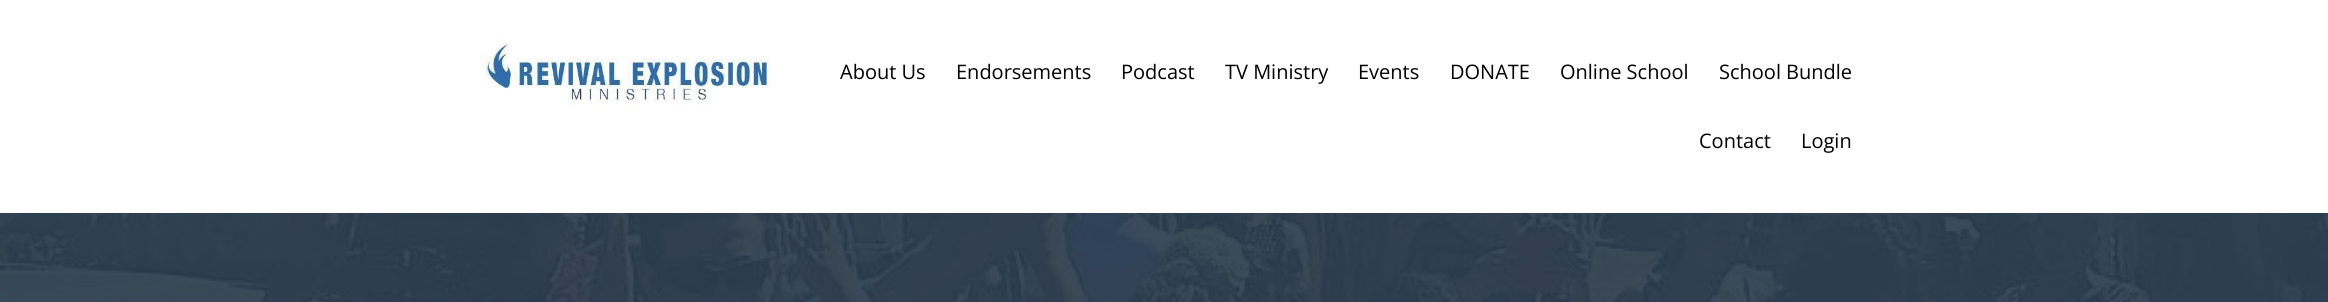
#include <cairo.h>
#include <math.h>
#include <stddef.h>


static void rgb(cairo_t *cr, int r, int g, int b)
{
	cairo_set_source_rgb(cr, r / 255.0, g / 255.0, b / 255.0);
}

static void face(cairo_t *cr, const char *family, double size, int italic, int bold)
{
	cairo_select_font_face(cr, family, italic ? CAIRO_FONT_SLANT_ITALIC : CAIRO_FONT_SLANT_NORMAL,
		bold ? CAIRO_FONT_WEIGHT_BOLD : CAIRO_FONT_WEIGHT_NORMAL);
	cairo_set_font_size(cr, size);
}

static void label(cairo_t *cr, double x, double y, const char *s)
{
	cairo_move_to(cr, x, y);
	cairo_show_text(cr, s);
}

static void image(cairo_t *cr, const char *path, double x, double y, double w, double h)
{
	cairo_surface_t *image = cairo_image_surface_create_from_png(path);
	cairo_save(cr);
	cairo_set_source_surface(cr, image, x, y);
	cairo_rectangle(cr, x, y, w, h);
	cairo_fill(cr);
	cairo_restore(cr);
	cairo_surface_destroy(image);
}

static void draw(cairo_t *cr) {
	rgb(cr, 255, 255, 255);
	cairo_paint(cr);
	image(cr, "image0.png", 485, 38, 286, 68);
	face(cr, "Open Sans", 20, 0, 0);
	rgb(cr, 0, 0, 0);
	label(cr, 840, 79, "About Us");
	label(cr, 956, 79, "Endorsements");
	label(cr, 1121, 79, "Podcast");
	label(cr, 1225, 79, "TV Ministry");
	label(cr, 1358, 79, "Events");
	label(cr, 1450, 79, "DONATE");
	label(cr, 1560, 79, "Online School");
	label(cr, 1719, 79, "School Bundle");
	label(cr, 1699, 148, "Contact");
	label(cr, 1801, 148, "Login");
	image(cr, "image1.png", 0, 213, 2328, 89);
}

int main(void) {
	cairo_surface_t *surface = cairo_image_surface_create(CAIRO_FORMAT_RGB24, 2328, 302);
	cairo_t *cr = cairo_create(surface);
	cairo_font_options_t *options = cairo_font_options_create();
	cairo_font_options_set_hint_metrics(options, CAIRO_HINT_METRICS_OFF);
	cairo_font_options_set_hint_style(options, CAIRO_HINT_STYLE_NONE);
	cairo_set_font_options(cr, options);
	cairo_set_miter_limit(cr, 4);
	draw(cr);
	cairo_surface_write_to_png(surface, "render.png");
	cairo_font_options_destroy(options);
	cairo_destroy(cr);
	cairo_surface_destroy(surface);
	return 0;
}
